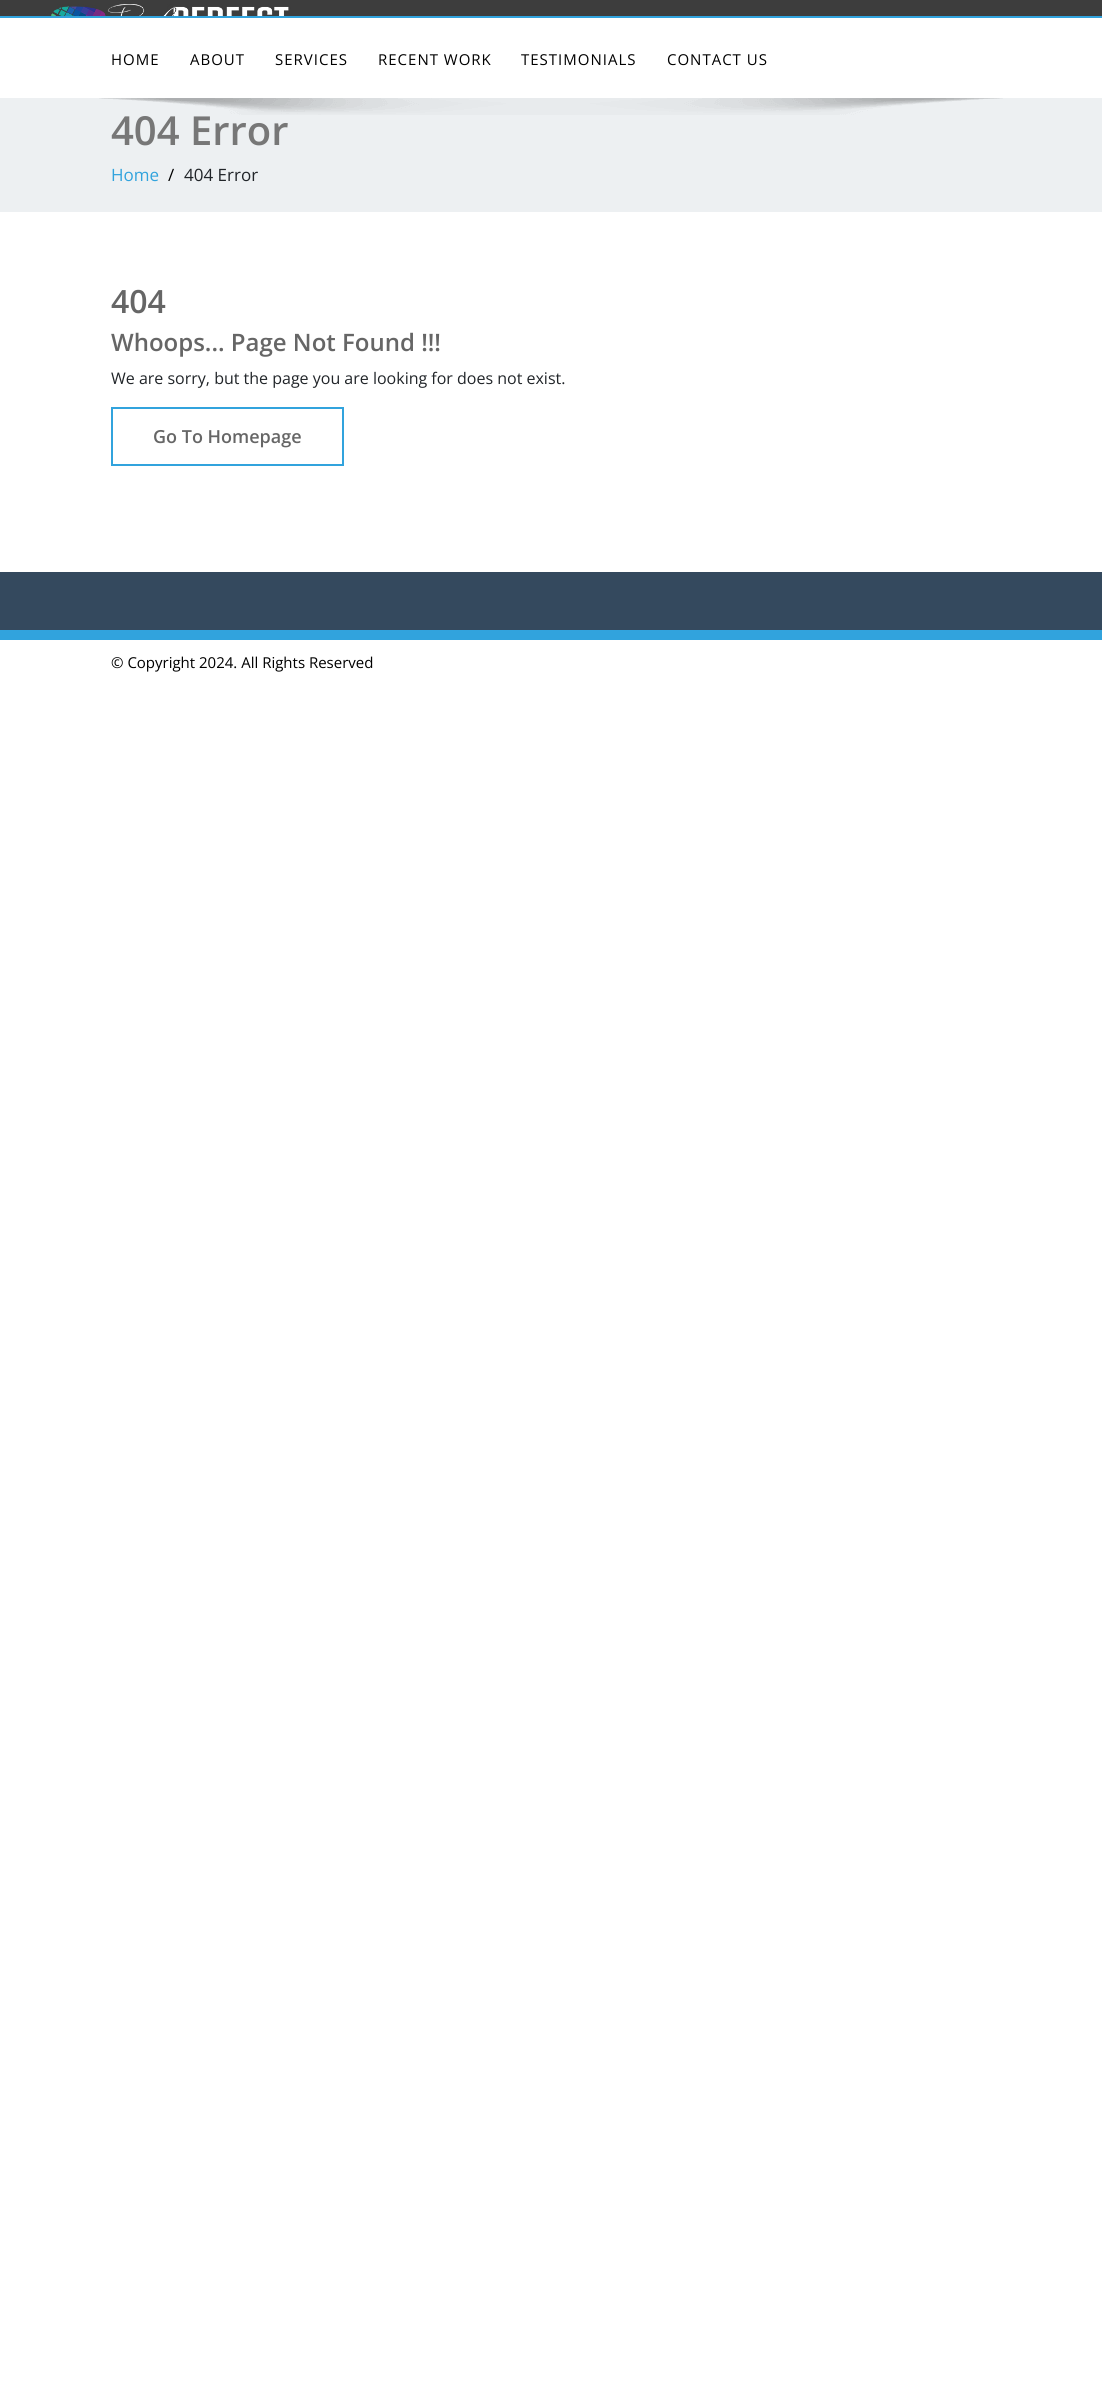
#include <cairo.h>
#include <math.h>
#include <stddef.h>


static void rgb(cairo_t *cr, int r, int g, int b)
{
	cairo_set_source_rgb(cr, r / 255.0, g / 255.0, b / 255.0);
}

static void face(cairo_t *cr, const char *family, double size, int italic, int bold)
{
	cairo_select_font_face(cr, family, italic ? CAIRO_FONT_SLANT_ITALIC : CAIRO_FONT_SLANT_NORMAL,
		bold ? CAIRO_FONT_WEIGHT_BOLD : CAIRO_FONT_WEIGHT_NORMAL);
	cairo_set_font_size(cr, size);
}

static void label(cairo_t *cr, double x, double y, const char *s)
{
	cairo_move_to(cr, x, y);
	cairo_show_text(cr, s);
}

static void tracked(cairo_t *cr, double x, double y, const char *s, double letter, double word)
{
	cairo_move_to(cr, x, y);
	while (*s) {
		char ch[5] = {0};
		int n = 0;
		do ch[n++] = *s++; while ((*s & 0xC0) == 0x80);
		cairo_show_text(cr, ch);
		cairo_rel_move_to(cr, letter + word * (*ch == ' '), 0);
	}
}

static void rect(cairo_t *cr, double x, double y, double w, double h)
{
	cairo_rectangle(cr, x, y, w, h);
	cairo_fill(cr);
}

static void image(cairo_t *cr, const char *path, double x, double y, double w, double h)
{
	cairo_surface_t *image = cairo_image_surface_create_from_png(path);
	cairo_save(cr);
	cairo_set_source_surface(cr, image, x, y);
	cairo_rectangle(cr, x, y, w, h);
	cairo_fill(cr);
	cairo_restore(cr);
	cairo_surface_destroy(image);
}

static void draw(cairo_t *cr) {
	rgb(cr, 255, 255, 255);
	cairo_paint(cr);
	image(cr, "image0.png", 0, 0, 1102, 16);
	rgb(cr, 49, 163, 221);
	rect(cr, 0, 16, 1102, 2);
	face(cr, "Open Sans", 15, 0, 0);
	rgb(cr, 0, 0, 0);
	tracked(cr, 111, 65, "HOME", 1, 0);
	tracked(cr, 190, 65, "ABOUT", 1, 0);
	tracked(cr, 275, 65, "SERVICES", 1, 0);
	tracked(cr, 378, 65, "RECENT WORK", 1, 0);
	tracked(cr, 521, 65, "TESTIMONIALS", 1, 0);
	tracked(cr, 667, 65, "CONTACT US", 1, 0);
	rgb(cr, 237, 240, 242);
	rect(cr, 0, 98, 1102, 114);
	image(cr, "image1.png", 99, 98, 904, 17);
	face(cr, "Open Sans SemiBold", 40, 0, 0);
	rgb(cr, 119, 119, 119);
	label(cr, 111, 145, "404 Error");
	face(cr, "Open Sans", 17, 0, 0);
	rgb(cr, 49, 163, 221);
	label(cr, 111, 181, "Home");
	rgb(cr, 0, 0, 0);
	label(cr, 168, 181, "/");
	rgb(cr, 33, 37, 41);
	label(cr, 184, 181, "404 Error");
	face(cr, "Open Sans SemiBold", 32, 0, 0);
	rgb(cr, 102, 102, 102);
	label(cr, 111, 313, "404");
	face(cr, "Open Sans SemiBold", 24, 0, 0);
	label(cr, 111, 351, "Whoops... Page Not Found !!!");
	face(cr, "Open Sans", 16, 0, 0);
	rgb(cr, 33, 37, 41);
	label(cr, 111, 384, "We are sorry, but the page you are looking for does not exist.");
	cairo_rectangle(cr, 112, 408, 231, 57);
	rgb(cr, 49, 163, 221);
	cairo_stroke(cr);
	face(cr, "Open Sans SemiBold", 18, 0, 0);
	rgb(cr, 102, 102, 102);
	label(cr, 153, 443, "Go To Homepage");
	rgb(cr, 52, 73, 94);
	rect(cr, 0, 572, 1102, 58);
	rgb(cr, 49, 163, 221);
	rect(cr, 0, 630, 1102, 10);
	face(cr, "Open Sans", 15, 0, 0);
	rgb(cr, 0, 0, 0);
	label(cr, 111, 668, "© Copyright 2024. All Rights Reserved");
}

int main(void) {
	cairo_surface_t *surface = cairo_image_surface_create(CAIRO_FORMAT_RGB24, 1102, 2402);
	cairo_t *cr = cairo_create(surface);
	cairo_font_options_t *options = cairo_font_options_create();
	cairo_font_options_set_hint_metrics(options, CAIRO_HINT_METRICS_OFF);
	cairo_font_options_set_hint_style(options, CAIRO_HINT_STYLE_NONE);
	cairo_set_font_options(cr, options);
	cairo_set_miter_limit(cr, 4);
	draw(cr);
	cairo_surface_write_to_png(surface, "render.png");
	cairo_font_options_destroy(options);
	cairo_destroy(cr);
	cairo_surface_destroy(surface);
	return 0;
}
